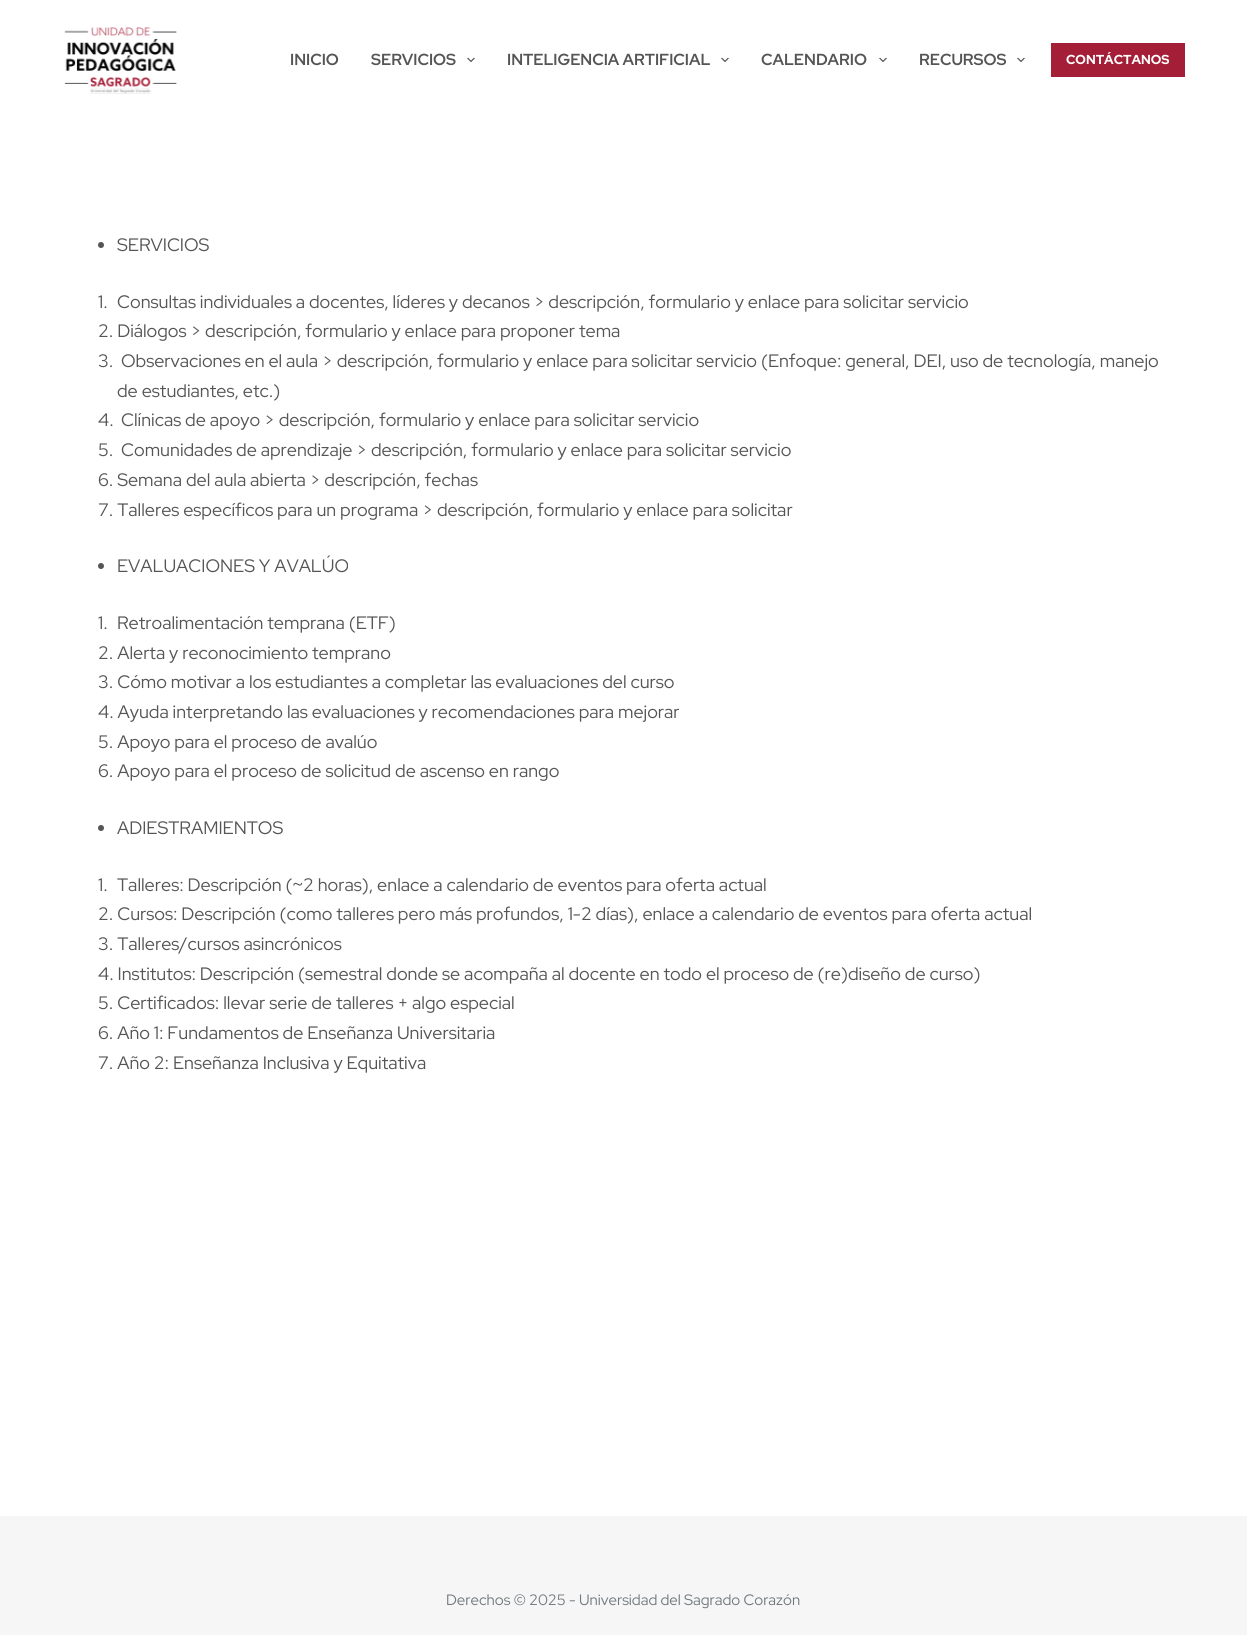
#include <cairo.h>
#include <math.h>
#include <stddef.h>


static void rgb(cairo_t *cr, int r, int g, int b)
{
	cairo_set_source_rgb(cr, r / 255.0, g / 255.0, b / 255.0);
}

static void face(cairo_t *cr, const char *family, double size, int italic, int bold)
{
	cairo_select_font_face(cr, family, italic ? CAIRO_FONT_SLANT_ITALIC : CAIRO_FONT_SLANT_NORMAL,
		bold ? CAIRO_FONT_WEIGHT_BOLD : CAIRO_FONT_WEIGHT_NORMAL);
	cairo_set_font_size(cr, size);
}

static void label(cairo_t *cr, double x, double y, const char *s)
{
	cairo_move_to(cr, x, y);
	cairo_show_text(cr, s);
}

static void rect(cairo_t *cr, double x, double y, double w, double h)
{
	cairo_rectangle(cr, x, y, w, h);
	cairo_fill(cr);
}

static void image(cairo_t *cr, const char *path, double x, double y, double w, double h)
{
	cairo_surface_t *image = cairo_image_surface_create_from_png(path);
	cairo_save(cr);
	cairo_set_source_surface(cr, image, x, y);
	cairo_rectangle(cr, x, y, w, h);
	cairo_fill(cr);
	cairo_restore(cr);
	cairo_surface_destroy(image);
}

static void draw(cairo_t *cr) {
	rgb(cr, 255, 255, 255);
	cairo_paint(cr);
	image(cr, "image0.png", 64, 27, 113, 67);
	face(cr, "Red Hat Display", 16, 0, 1);
	rgb(cr, 85, 85, 85);
	label(cr, 290, 65, "INICIO");
	label(cr, 371, 65, "SERVICIOS");
	image(cr, "image1.png", 467, 57, 8, 6);
	label(cr, 507, 65, "INTELIGENCIA ARTIFICIAL");
	image(cr, "image1.png", 721, 57, 8, 6);
	label(cr, 761, 65, "CALENDARIO");
	image(cr, "image1.png", 879, 57, 8, 6);
	label(cr, 919, 65, "RECURSOS");
	image(cr, "image1.png", 1017, 57, 8, 6);
	rgb(cr, 164, 30, 55);
	rect(cr, 1051, 43, 134, 34);
	face(cr, "Red Hat Display ExtraBold", 13, 0, 0);
	rgb(cr, 255, 255, 255);
	label(cr, 1066, 64, "CONTÁCTANOS");
	rgb(cr, 85, 85, 85);
	cairo_new_path(cr);
	cairo_arc(cr, 101, 245, 3, 0, 2 * M_PI);
	cairo_fill(cr);
	face(cr, "Red Hat Display", 18, 0, 0);
	label(cr, 117, 251, "SERVICIOS");
	label(cr, 98, 308, "1.");
	label(cr, 117, 308, "Consultas individuales a docentes, líderes y decanos > descripción, formulario y enlace para solicitar servicio");
	label(cr, 98, 337, "2. Diálogos > descripción, formulario y enlace para proponer tema");
	label(cr, 98, 367, "3.");
	label(cr, 121, 367, "Observaciones en el aula > descripción, formulario y enlace para solicitar servicio (Enfoque: general, DEI, uso de tecnología, manejo");
	label(cr, 117, 397, "de estudiantes, etc.)");
	label(cr, 98, 426, "4.");
	label(cr, 121, 426, "Clínicas de apoyo > descripción, formulario y enlace para solicitar servicio");
	label(cr, 98, 456, "5.");
	label(cr, 121, 456, "Comunidades de aprendizaje > descripción, formulario y enlace para solicitar servicio");
	label(cr, 98, 486, "6. Semana del aula abierta > descripción, fechas");
	label(cr, 98, 516, "7. Talleres específicos para un programa > descripción, formulario y enlace para solicitar");
	cairo_new_path(cr);
	cairo_arc(cr, 101, 566, 3, 0, 2 * M_PI);
	cairo_fill(cr);
	label(cr, 117, 572, "EVALUACIONES Y AVALÚO");
	label(cr, 98, 629, "1.");
	label(cr, 117, 629, "Retroalimentación temprana (ETF)");
	label(cr, 98, 659, "2. Alerta y reconocimiento temprano");
	label(cr, 98, 688, "3. Cómo motivar a los estudiantes a completar las evaluaciones del curso");
	label(cr, 98, 718, "4. Ayuda interpretando las evaluaciones y recomendaciones para mejorar");
	label(cr, 98, 748, "5. Apoyo para el proceso de avalúo");
	label(cr, 98, 777, "6. Apoyo para el proceso de solicitud de ascenso en rango");
	cairo_new_path(cr);
	cairo_arc(cr, 101, 828, 3, 0, 2 * M_PI);
	cairo_fill(cr);
	label(cr, 117, 834, "ADIESTRAMIENTOS");
	label(cr, 98, 891, "1.");
	label(cr, 117, 891, "Talleres: Descripción (~2 horas), enlace a calendario de eventos para oferta actual");
	label(cr, 98, 920, "2. Cursos: Descripción (como talleres pero más profundos, 1-2 días), enlace a calendario de eventos para oferta actual");
	label(cr, 98, 950, "3. Talleres/cursos asincrónicos");
	label(cr, 98, 980, "4. Institutos: Descripción (semestral donde se acompaña al docente en todo el proceso de (re)diseño de curso)");
	label(cr, 98, 1009, "5. Certificados: llevar serie de talleres + algo especial");
	label(cr, 98, 1039, "6. Año 1: Fundamentos de Enseñanza Universitaria");
	label(cr, 98, 1069, "7. Año 2: Enseñanza Inclusiva y Equitativa");
	rgb(cr, 246, 246, 246);
	rect(cr, 0, 1516, 1247, 119);
	face(cr, "Red Hat Display", 15, 0, 0);
	rgb(cr, 113, 122, 126);
	label(cr, 446, 1605, "Derechos © 2025 - Universidad del Sagrado Corazón");
}

int main(void) {
	cairo_surface_t *surface = cairo_image_surface_create(CAIRO_FORMAT_RGB24, 1247, 1635);
	cairo_t *cr = cairo_create(surface);
	cairo_font_options_t *options = cairo_font_options_create();
	cairo_font_options_set_hint_metrics(options, CAIRO_HINT_METRICS_OFF);
	cairo_font_options_set_hint_style(options, CAIRO_HINT_STYLE_NONE);
	cairo_set_font_options(cr, options);
	cairo_set_miter_limit(cr, 4);
	draw(cr);
	cairo_surface_write_to_png(surface, "render.png");
	cairo_font_options_destroy(options);
	cairo_destroy(cr);
	cairo_surface_destroy(surface);
	return 0;
}
